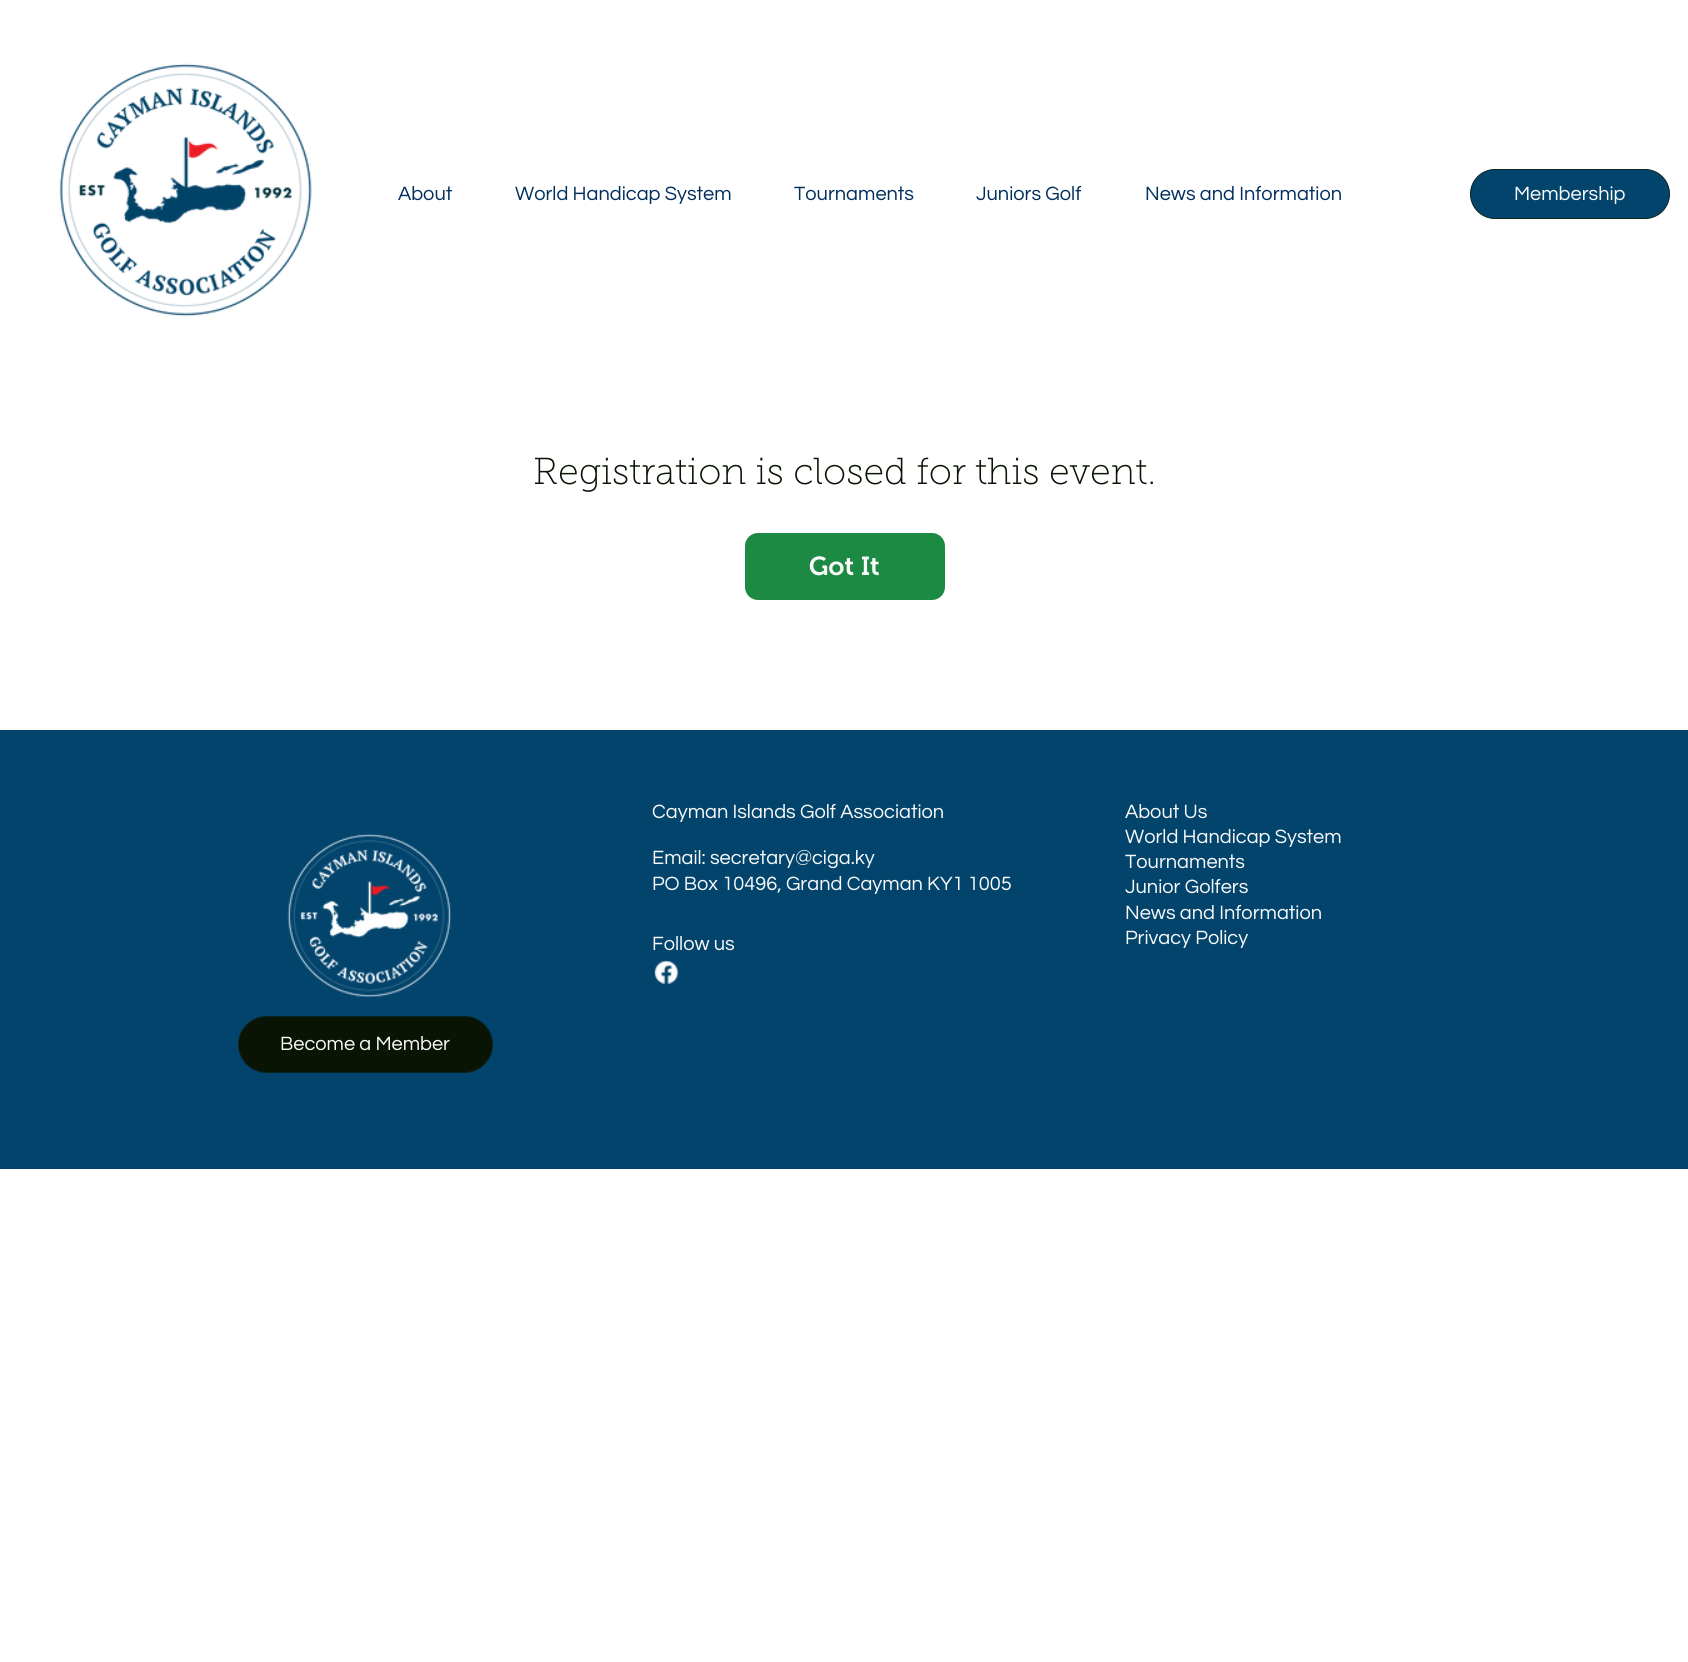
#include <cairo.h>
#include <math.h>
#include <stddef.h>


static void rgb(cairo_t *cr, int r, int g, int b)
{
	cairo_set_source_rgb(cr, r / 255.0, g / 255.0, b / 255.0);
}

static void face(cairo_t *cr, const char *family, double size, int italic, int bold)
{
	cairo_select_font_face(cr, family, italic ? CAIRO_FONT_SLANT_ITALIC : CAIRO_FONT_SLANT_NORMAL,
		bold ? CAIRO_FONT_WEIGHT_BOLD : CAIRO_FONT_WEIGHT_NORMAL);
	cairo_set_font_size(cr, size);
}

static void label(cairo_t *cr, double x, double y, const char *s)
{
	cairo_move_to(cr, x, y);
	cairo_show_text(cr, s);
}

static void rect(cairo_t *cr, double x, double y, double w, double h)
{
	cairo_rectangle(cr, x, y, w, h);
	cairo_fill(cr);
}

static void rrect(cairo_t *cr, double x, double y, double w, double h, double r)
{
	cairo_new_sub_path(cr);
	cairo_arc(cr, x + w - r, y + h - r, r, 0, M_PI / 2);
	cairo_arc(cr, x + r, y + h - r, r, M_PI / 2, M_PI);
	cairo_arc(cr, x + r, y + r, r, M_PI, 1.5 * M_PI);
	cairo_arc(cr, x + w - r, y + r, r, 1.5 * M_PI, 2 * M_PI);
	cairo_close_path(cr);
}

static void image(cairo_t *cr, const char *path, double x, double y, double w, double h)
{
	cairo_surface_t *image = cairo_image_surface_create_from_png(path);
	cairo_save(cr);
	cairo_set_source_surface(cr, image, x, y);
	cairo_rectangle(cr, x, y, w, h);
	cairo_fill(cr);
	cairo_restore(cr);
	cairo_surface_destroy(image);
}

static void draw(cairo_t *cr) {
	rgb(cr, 255, 255, 255);
	cairo_paint(cr);
	image(cr, "image0.png", 59, 63, 253, 254);
	face(cr, "Questrial", 20, 0, 0);
	rgb(cr, 0, 46, 93);
	label(cr, 398, 200, "About");
	label(cr, 515, 200, "World Handicap System");
	label(cr, 794, 200, "Tournaments");
	label(cr, 976, 200, "Juniors Golf");
	label(cr, 1145, 200, "News and Information");
	rgb(cr, 3, 68, 109);
	rrect(cr, 1470.5, 169.5, 199, 49, 24.5);
	cairo_fill_preserve(cr);
	rgb(cr, 10, 35, 35);
	cairo_set_line_width(cr, 1);
	cairo_stroke(cr);
	rgb(cr, 250, 250, 250);
	label(cr, 1514, 200, "Membership");
	face(cr, "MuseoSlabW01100 Thin", 37.5, 0, 0);
	rgb(cr, 9, 20, 5);
	label(cr, 533, 484, "Registration is closed for this event.");
	rgb(cr, 28, 138, 67);
	rrect(cr, 745, 533, 200, 67, 13);
	cairo_fill(cr);
	face(cr, "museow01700 SemiBold", 26, 0, 0);
	rgb(cr, 250, 250, 250);
	label(cr, 809, 575, "Got It");
	rgb(cr, 3, 68, 109);
	rect(cr, 0, 730, 1688, 439);
	face(cr, "Questrial", 20, 0, 0);
	rgb(cr, 250, 250, 250);
	label(cr, 652, 818, "Cayman Islands Golf Association");
	label(cr, 652, 864, "Email: secretary@ciga.ky");
	label(cr, 652, 890, "PO Box 10496, Grand Cayman KY1 1005");
	label(cr, 652, 950, "Follow us");
	image(cr, "image1.png", 654, 960, 25, 24);
	label(cr, 1125, 818, "About Us");
	label(cr, 1125, 843, "World Handicap System");
	label(cr, 1125, 868, "Tournaments");
	label(cr, 1125, 893, "Junior Golfers");
	label(cr, 1125, 919, "News and Information");
	label(cr, 1125, 944, "Privacy Policy");
	image(cr, "image2.png", 287, 833, 165, 165);
	rgb(cr, 9, 20, 5);
	rrect(cr, 238.5, 1016.5, 254, 56, 28);
	cairo_fill_preserve(cr);
	rgb(cr, 10, 35, 35);
	cairo_stroke(cr);
	rgb(cr, 250, 250, 250);
	label(cr, 280, 1050, "Become a Member");
}

int main(void) {
	cairo_surface_t *surface = cairo_image_surface_create(CAIRO_FORMAT_RGB24, 1688, 1662);
	cairo_t *cr = cairo_create(surface);
	cairo_font_options_t *options = cairo_font_options_create();
	cairo_font_options_set_hint_metrics(options, CAIRO_HINT_METRICS_OFF);
	cairo_font_options_set_hint_style(options, CAIRO_HINT_STYLE_NONE);
	cairo_set_font_options(cr, options);
	cairo_set_miter_limit(cr, 4);
	draw(cr);
	cairo_surface_write_to_png(surface, "render.png");
	cairo_font_options_destroy(options);
	cairo_destroy(cr);
	cairo_surface_destroy(surface);
	return 0;
}
